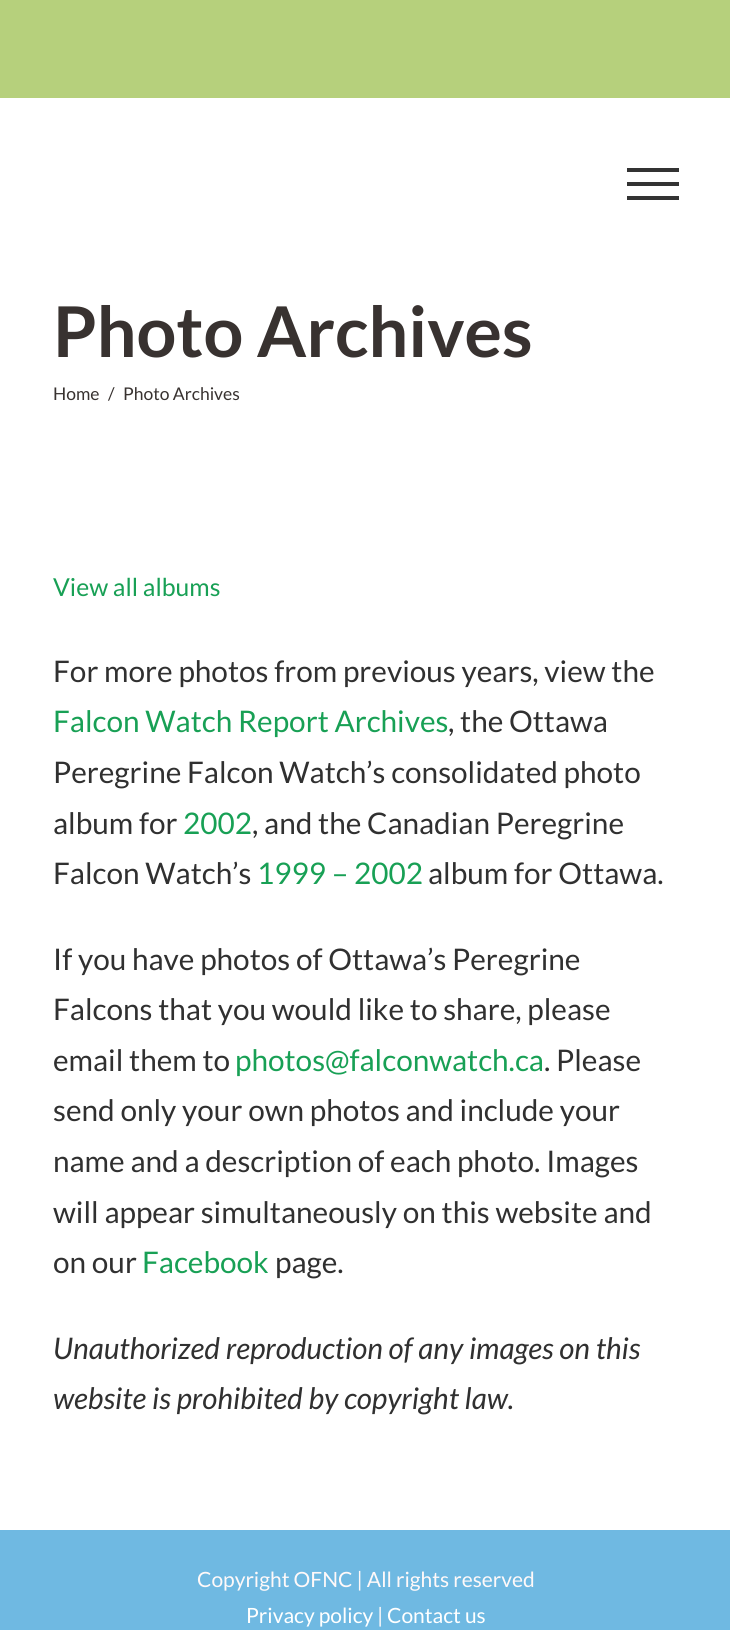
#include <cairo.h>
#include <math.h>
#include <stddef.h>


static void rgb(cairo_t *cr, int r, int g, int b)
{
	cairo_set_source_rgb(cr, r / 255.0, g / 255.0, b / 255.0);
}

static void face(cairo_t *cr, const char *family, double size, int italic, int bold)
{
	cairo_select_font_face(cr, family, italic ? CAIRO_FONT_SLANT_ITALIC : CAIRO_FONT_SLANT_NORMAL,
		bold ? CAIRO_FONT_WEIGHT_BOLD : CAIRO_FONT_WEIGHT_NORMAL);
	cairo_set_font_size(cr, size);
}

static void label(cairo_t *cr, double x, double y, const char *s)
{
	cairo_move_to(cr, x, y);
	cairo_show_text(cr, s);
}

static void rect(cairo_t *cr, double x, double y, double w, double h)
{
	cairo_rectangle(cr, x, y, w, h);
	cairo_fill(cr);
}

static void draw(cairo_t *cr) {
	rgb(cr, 255, 255, 255);
	cairo_paint(cr);
	rgb(cr, 182, 208, 124);
	rect(cr, 0, 0, 730, 98);
	rgb(cr, 51, 51, 51);
	rect(cr, 627, 168, 52, 4);
	rect(cr, 627, 182, 52, 4);
	rect(cr, 627, 196, 52, 4);
	face(cr, "Lato", 70, 0, 1);
	rgb(cr, 56, 50, 48);
	label(cr, 53, 357, "Photo Archives");
	face(cr, "Lato", 17.5, 0, 0);
	label(cr, 53, 400, "Home");
	label(cr, 108, 400, "/");
	label(cr, 123, 400, "Photo Archives");
	face(cr, "Lato", 24.75, 0, 0);
	rgb(cr, 24, 160, 85);
	label(cr, 53, 596, "View all albums");
	face(cr, "Lato", 29.75, 0, 0);
	rgb(cr, 48, 48, 48);
	label(cr, 53, 682, "For more photos from previous years, view the");
	rgb(cr, 24, 160, 85);
	label(cr, 53, 732, "Falcon Watch Report Archives");
	rgb(cr, 48, 48, 48);
	label(cr, 448, 732, ", the Ottawa");
	label(cr, 53, 783, "Peregrine Falcon Watch’s consolidated photo");
	label(cr, 53, 834, "album for");
	rgb(cr, 24, 160, 85);
	label(cr, 183, 834, "2002");
	rgb(cr, 48, 48, 48);
	label(cr, 252, 834, ", and the Canadian Peregrine");
	label(cr, 53, 884, "Falcon Watch’s");
	rgb(cr, 24, 160, 85);
	label(cr, 257, 884, "1999 – 2002");
	rgb(cr, 48, 48, 48);
	label(cr, 428, 884, "album for Ottawa.");
	label(cr, 53, 970, "If you have photos of Ottawa’s Peregrine");
	label(cr, 53, 1020, "Falcons that you would like to share, please");
	label(cr, 53, 1071, "email them to");
	rgb(cr, 24, 160, 85);
	label(cr, 235, 1071, "photos@falconwatch.ca");
	rgb(cr, 48, 48, 48);
	label(cr, 544, 1071, ". Please");
	label(cr, 53, 1121, "send only your own photos and include your");
	label(cr, 53, 1172, "name and a description of each photo. Images");
	label(cr, 53, 1223, "will appear simultaneously on this website and");
	label(cr, 53, 1273, "on our");
	rgb(cr, 24, 160, 85);
	label(cr, 142, 1273, "Facebook");
	rgb(cr, 48, 48, 48);
	label(cr, 275, 1273, "page.");
	face(cr, "Lato", 29.75, 1, 0);
	label(cr, 53, 1359, "Unauthorized reproduction of any images on this");
	label(cr, 53, 1409, "website is prohibited by copyright law.");
	rgb(cr, 111, 185, 226);
	rect(cr, 0, 1530, 730, 100);
	face(cr, "Lato", 21, 0, 0);
	rgb(cr, 255, 249, 249);
	label(cr, 197, 1587, "Copyright OFNC | All rights reserved");
	rgb(cr, 255, 255, 255);
	label(cr, 246, 1623, "Privacy policy");
	rgb(cr, 255, 249, 249);
	label(cr, 377, 1623, "|");
	rgb(cr, 255, 255, 255);
	label(cr, 387, 1623, "Contact us");
}

int main(void) {
	cairo_surface_t *surface = cairo_image_surface_create(CAIRO_FORMAT_RGB24, 730, 1630);
	cairo_t *cr = cairo_create(surface);
	cairo_font_options_t *options = cairo_font_options_create();
	cairo_font_options_set_hint_metrics(options, CAIRO_HINT_METRICS_OFF);
	cairo_font_options_set_hint_style(options, CAIRO_HINT_STYLE_NONE);
	cairo_set_font_options(cr, options);
	cairo_set_miter_limit(cr, 4);
	draw(cr);
	cairo_surface_write_to_png(surface, "render.png");
	cairo_font_options_destroy(options);
	cairo_destroy(cr);
	cairo_surface_destroy(surface);
	return 0;
}
